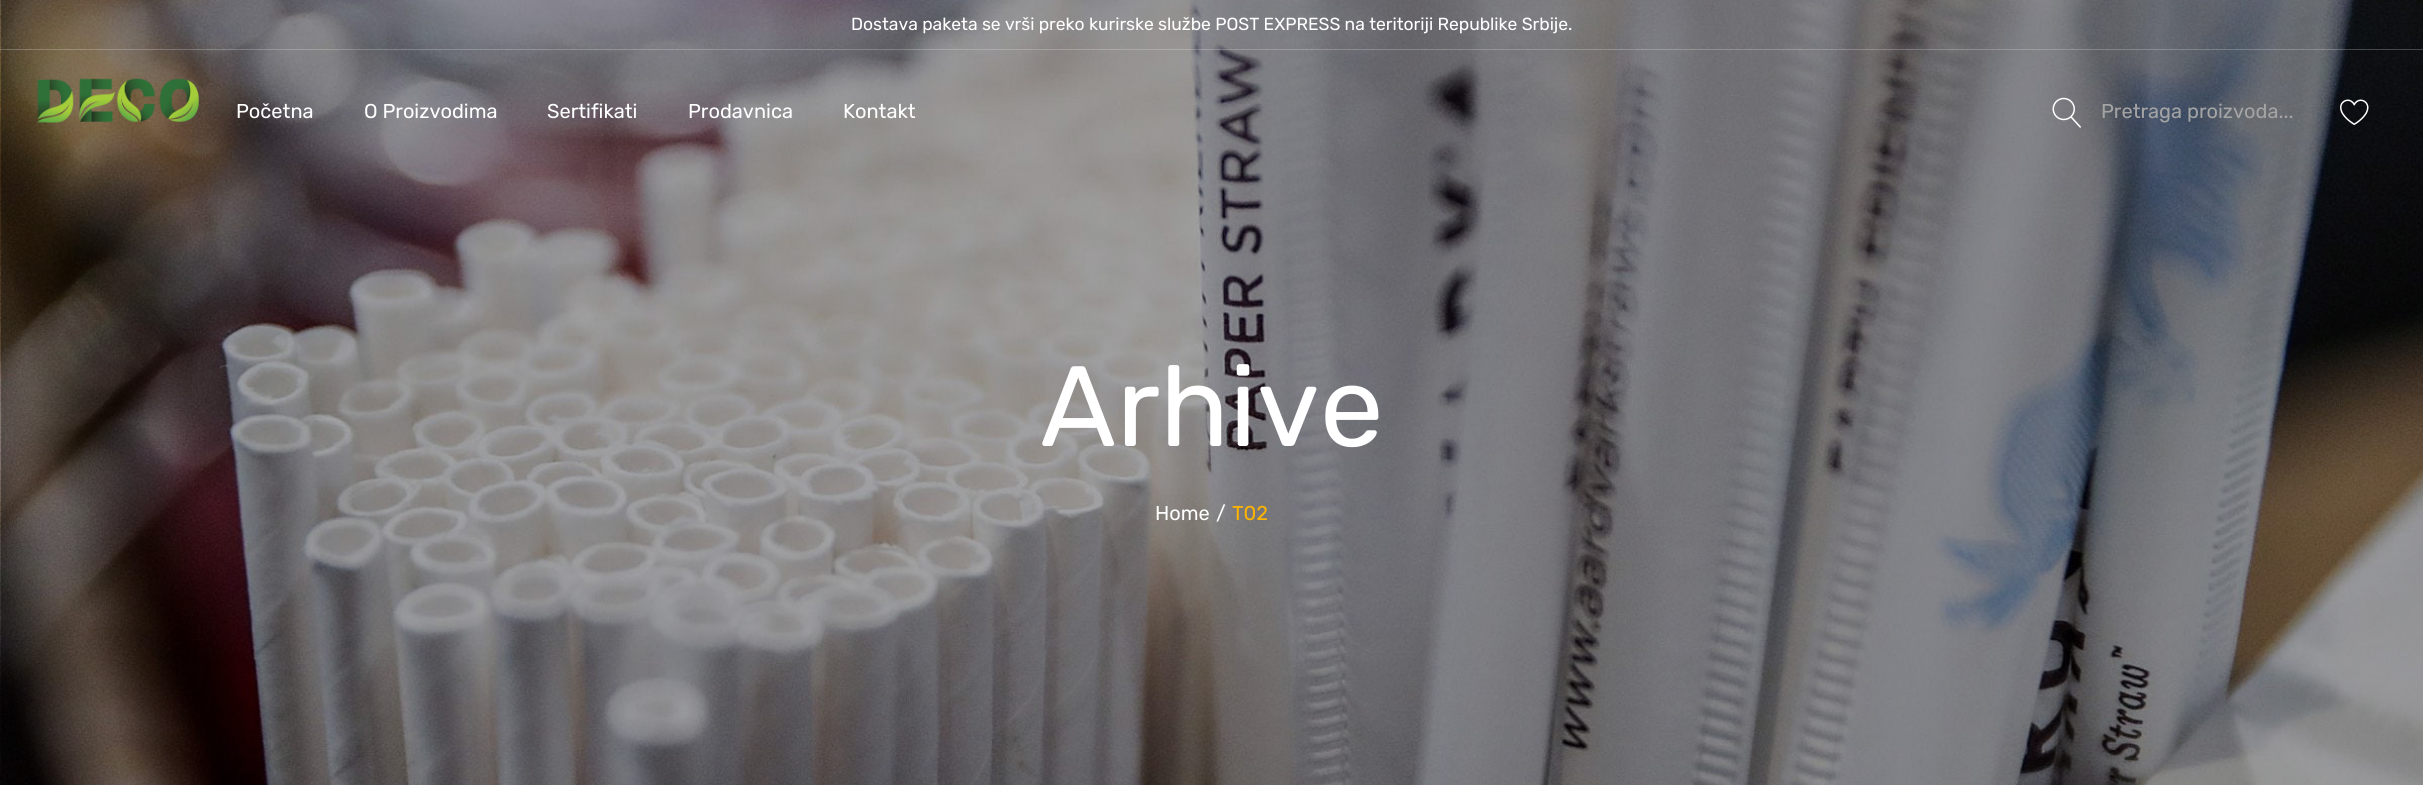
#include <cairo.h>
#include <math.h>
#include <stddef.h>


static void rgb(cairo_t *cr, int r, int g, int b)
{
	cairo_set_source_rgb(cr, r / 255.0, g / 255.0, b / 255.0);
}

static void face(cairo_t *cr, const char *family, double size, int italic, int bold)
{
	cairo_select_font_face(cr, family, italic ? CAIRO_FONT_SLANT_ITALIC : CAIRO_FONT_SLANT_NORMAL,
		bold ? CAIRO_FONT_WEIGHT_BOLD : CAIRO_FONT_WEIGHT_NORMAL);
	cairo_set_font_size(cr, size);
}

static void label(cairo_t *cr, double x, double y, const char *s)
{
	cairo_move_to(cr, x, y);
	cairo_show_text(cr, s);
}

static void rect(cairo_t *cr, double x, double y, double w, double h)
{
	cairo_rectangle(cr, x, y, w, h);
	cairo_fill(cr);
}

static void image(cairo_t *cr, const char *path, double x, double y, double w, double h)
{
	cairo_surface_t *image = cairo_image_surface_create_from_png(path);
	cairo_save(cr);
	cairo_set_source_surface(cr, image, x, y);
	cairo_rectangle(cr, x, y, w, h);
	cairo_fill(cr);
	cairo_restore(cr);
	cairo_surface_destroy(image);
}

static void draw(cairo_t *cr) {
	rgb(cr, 255, 255, 255);
	cairo_paint(cr);
	image(cr, "image3.png", 0, 0, 2423, 785);
	cairo_set_source_rgba(cr, 0.922, 0.922, 0.922, 0.25);
	rect(cr, 0, 49, 2423, 1);
	face(cr, "Rubik", 17.5, 0, 0);
	rgb(cr, 255, 255, 255);
	label(cr, 851, 30, "Dostava paketa se vrši preko kurirske službe POST EXPRESS na teritoriji Republike Srbije.");
	image(cr, "image0.png", 37, 78, 162, 45);
	face(cr, "Rubik", 20, 0, 0);
	label(cr, 236, 118, "Početna");
	label(cr, 364, 118, "O Proizvodima");
	label(cr, 547, 118, "Sertifikati");
	label(cr, 688, 118, "Prodavnica");
	label(cr, 843, 118, "Kontakt");
	image(cr, "image1.png", 2052, 97, 29, 31);
	rgb(cr, 164, 164, 164);
	label(cr, 2101, 118, "Pretraga proizvoda...");
	image(cr, "image2.png", 2340, 99, 29, 26);
	face(cr, "Rubik", 114, 0, 0);
	rgb(cr, 255, 255, 255);
	label(cr, 1040, 446, "Arhive");
	face(cr, "Rubik", 20, 0, 0);
	label(cr, 1155, 520, "Home");
	label(cr, 1216, 520, "/");
	rgb(cr, 255, 180, 0);
	label(cr, 1232, 520, "T02");
}

int main(void) {
	cairo_surface_t *surface = cairo_image_surface_create(CAIRO_FORMAT_RGB24, 2423, 785);
	cairo_t *cr = cairo_create(surface);
	cairo_font_options_t *options = cairo_font_options_create();
	cairo_font_options_set_hint_metrics(options, CAIRO_HINT_METRICS_OFF);
	cairo_font_options_set_hint_style(options, CAIRO_HINT_STYLE_NONE);
	cairo_set_font_options(cr, options);
	cairo_set_miter_limit(cr, 4);
	draw(cr);
	cairo_surface_write_to_png(surface, "render.png");
	cairo_font_options_destroy(options);
	cairo_destroy(cr);
	cairo_surface_destroy(surface);
	return 0;
}
